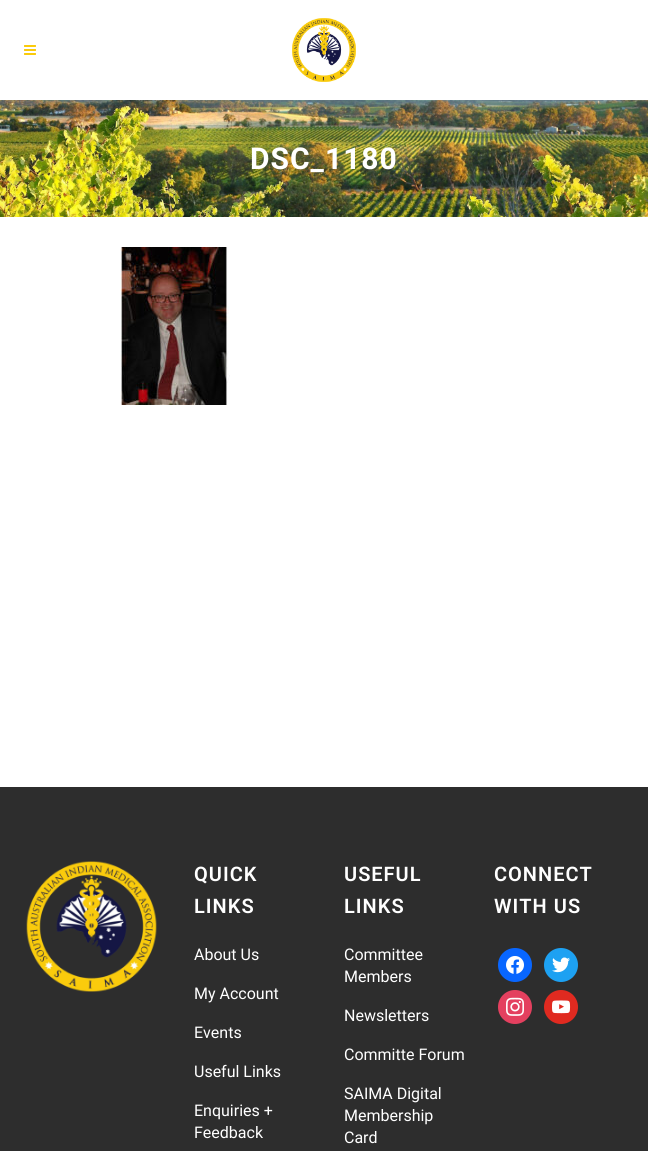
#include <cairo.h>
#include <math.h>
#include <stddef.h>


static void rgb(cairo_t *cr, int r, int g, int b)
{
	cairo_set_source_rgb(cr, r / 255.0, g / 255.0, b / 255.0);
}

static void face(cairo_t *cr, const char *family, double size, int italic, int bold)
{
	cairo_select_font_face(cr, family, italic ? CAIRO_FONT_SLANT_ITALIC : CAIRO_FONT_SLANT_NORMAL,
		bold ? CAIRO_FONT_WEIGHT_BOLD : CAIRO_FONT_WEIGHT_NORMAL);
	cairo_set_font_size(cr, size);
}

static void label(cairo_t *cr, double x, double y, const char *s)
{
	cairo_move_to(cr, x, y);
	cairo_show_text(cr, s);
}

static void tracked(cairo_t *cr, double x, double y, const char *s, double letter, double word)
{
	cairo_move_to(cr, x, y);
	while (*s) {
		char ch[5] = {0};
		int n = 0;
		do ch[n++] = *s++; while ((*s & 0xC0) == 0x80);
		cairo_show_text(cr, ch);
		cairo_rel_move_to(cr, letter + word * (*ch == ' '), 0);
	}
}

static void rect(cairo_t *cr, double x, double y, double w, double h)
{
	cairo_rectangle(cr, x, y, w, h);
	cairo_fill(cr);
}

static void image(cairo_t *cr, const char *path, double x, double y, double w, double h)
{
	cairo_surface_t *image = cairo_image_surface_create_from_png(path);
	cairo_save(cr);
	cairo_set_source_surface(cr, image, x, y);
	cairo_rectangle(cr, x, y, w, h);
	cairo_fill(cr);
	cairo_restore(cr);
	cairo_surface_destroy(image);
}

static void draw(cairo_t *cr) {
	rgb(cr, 255, 255, 255);
	cairo_paint(cr);
	image(cr, "image0.png", 24, 45, 12, 10);
	image(cr, "image1.png", 292, 18, 64, 64);
	image(cr, "image2.png", 0, 100, 648, 117);
	face(cr, "Roboto", 30, 0, 1);
	rgb(cr, 255, 255, 255);
	tracked(cr, 250, 169, "DSC_1180", 1, 0);
	image(cr, "image3.png", 120, 247, 110, 158);
	rgb(cr, 45, 45, 45);
	rect(cr, 0, 787, 648, 364);
	image(cr, "image4.png", 26, 861, 131, 131);
	face(cr, "Roboto SemiBold", 20, 0, 0);
	rgb(cr, 255, 255, 255);
	tracked(cr, 194, 881, "QUICK", 1, 0);
	tracked(cr, 194, 913, "LINKS", 1, 0);
	face(cr, "Roboto", 16, 0, 0);
	label(cr, 194, 960, "About Us");
	label(cr, 194, 999, "My Account");
	label(cr, 194, 1038, "Events");
	label(cr, 194, 1077, "Useful Links");
	label(cr, 194, 1116, "Enquiries +");
	label(cr, 194, 1138, "Feedback");
	face(cr, "Roboto SemiBold", 20, 0, 0);
	tracked(cr, 344, 881, "USEFUL", 1, 0);
	tracked(cr, 344, 913, "LINKS", 1, 0);
	face(cr, "Roboto", 16, 0, 0);
	label(cr, 344, 960, "Committee");
	label(cr, 344, 982, "Members");
	label(cr, 344, 1021, "Newsletters");
	label(cr, 344, 1060, "Committe Forum");
	label(cr, 344, 1099, "SAIMA Digital");
	label(cr, 344, 1121, "Membership");
	label(cr, 344, 1143, "Card");
	face(cr, "Roboto SemiBold", 20, 0, 0);
	tracked(cr, 494, 881, "CONNECT", 1, 0);
	tracked(cr, 494, 913, "WITH US", 1, 0);
	rgb(cr, 8, 102, 255);
	cairo_new_path(cr);
	cairo_arc(cr, 515, 965, 17, 0, 2 * M_PI);
	cairo_fill(cr);
	image(cr, "image5.png", 506, 956, 18, 18);
	rgb(cr, 29, 161, 242);
	cairo_arc(cr, 561, 965, 17, 0, 2 * M_PI);
	cairo_fill(cr);
	image(cr, "image6.png", 552, 957, 18, 16);
	rgb(cr, 228, 64, 95);
	cairo_arc(cr, 515, 1007, 17, 0, 2 * M_PI);
	cairo_fill(cr);
	image(cr, "image7.png", 506, 997, 18, 19);
	rgb(cr, 224, 42, 32);
	cairo_arc(cr, 561, 1007, 17, 0, 2 * M_PI);
	cairo_fill(cr);
	image(cr, "image8.png", 552, 1000, 19, 14);
}

int main(void) {
	cairo_surface_t *surface = cairo_image_surface_create(CAIRO_FORMAT_RGB24, 648, 1151);
	cairo_t *cr = cairo_create(surface);
	cairo_font_options_t *options = cairo_font_options_create();
	cairo_font_options_set_hint_metrics(options, CAIRO_HINT_METRICS_OFF);
	cairo_font_options_set_hint_style(options, CAIRO_HINT_STYLE_NONE);
	cairo_set_font_options(cr, options);
	cairo_set_miter_limit(cr, 4);
	draw(cr);
	cairo_surface_write_to_png(surface, "render.png");
	cairo_font_options_destroy(options);
	cairo_destroy(cr);
	cairo_surface_destroy(surface);
	return 0;
}
